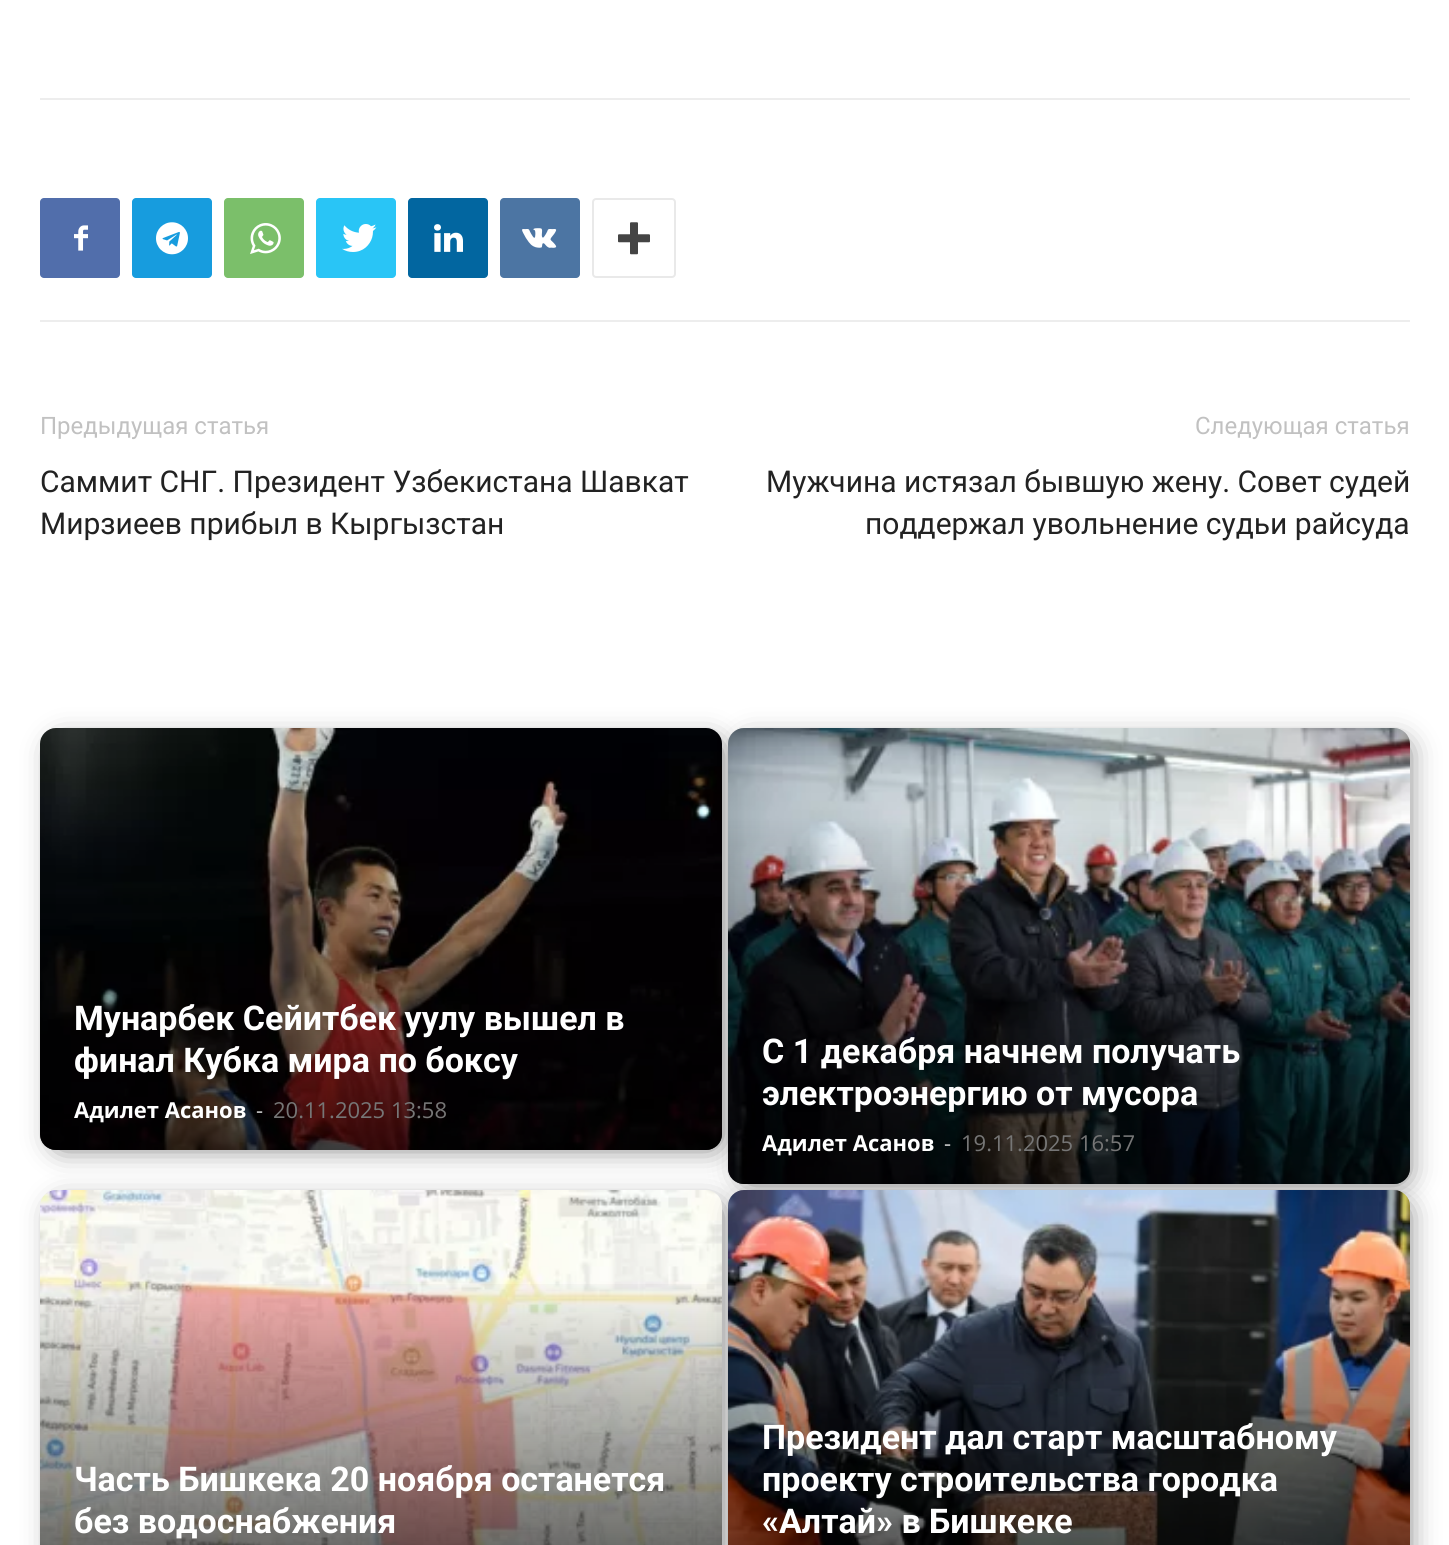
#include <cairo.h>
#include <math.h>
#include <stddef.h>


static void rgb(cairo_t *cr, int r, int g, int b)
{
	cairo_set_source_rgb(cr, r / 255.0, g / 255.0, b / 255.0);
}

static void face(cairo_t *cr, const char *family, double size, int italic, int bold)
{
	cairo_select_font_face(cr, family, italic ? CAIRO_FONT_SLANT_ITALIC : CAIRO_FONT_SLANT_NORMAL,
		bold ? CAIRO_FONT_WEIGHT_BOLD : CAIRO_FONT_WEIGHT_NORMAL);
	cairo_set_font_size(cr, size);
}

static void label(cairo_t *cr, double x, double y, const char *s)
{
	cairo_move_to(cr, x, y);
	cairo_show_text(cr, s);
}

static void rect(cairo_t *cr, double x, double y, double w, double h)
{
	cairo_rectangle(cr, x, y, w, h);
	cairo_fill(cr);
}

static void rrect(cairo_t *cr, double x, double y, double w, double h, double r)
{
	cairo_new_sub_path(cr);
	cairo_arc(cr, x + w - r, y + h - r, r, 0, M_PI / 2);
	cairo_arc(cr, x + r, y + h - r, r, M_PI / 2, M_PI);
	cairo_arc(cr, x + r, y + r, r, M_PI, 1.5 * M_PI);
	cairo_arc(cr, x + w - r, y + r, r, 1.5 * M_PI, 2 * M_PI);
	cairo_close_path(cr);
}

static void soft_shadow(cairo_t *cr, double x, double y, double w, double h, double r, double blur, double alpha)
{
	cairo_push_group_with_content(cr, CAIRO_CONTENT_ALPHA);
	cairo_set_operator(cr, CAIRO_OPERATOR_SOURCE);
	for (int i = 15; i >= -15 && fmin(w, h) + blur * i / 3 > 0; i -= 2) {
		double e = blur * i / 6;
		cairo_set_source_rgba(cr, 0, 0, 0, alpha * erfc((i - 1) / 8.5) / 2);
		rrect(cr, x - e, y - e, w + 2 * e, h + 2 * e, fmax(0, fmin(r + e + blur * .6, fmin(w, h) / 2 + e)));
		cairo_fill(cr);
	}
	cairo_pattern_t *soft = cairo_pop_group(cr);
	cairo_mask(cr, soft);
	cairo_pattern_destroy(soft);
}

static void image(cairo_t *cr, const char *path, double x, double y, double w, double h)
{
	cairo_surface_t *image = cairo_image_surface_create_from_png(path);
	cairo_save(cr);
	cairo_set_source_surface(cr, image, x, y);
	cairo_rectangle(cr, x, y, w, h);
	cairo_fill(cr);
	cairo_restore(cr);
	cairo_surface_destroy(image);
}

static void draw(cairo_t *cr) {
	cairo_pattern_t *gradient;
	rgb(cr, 255, 255, 255);
	cairo_paint(cr);
	rgb(cr, 237, 237, 237);
	rect(cr, 40, 98, 1370, 2);
	rect(cr, 40, 320, 1370, 2);
	rgb(cr, 81, 110, 171);
	rrect(cr, 40, 198, 80, 80, 4);
	cairo_fill(cr);
	image(cr, "image0.png", 74, 225, 14, 26);
	rgb(cr, 23, 156, 222);
	rrect(cr, 132, 198, 80, 80, 4);
	cairo_fill(cr);
	image(cr, "image1.png", 156, 222, 32, 33);
	rgb(cr, 123, 191, 106);
	rrect(cr, 224, 198, 80, 80, 4);
	cairo_fill(cr);
	image(cr, "image2.png", 250, 223, 31, 31);
	rgb(cr, 41, 197, 246);
	rrect(cr, 316, 198, 80, 80, 4);
	cairo_fill(cr);
	image(cr, "image3.png", 342, 224, 35, 28);
	rgb(cr, 2, 102, 160);
	rrect(cr, 408, 198, 80, 80, 4);
	cairo_fill(cr);
	image(cr, "image4.png", 434, 224, 29, 28);
	rgb(cr, 76, 117, 163);
	rrect(cr, 500, 198, 80, 80, 4);
	cairo_fill(cr);
	image(cr, "image5.png", 522, 228, 35, 20);
	rrect(cr, 593, 199, 82, 78, 3);
	rgb(cr, 233, 233, 233);
	cairo_stroke(cr);
	image(cr, "image6.png", 618, 222, 32, 33);
	face(cr, "Roboto", 24, 0, 0);
	rgb(cr, 193, 193, 193);
	label(cr, 40, 434, "Предыдущая статья");
	face(cr, "Roboto", 30, 0, 0);
	rgb(cr, 34, 34, 34);
	label(cr, 40, 492, "Саммит СНГ. Президент Узбекистана Шавкат");
	label(cr, 40, 534, "Мирзиеев прибыл в Кыргызстан");
	face(cr, "Roboto", 24, 0, 0);
	rgb(cr, 193, 193, 193);
	label(cr, 1195, 434, "Следующая статья");
	face(cr, "Roboto", 30, 0, 0);
	rgb(cr, 34, 34, 34);
	label(cr, 766, 492, "Мужчина истязал бывшую жену. Совет судей");
	label(cr, 865, 534, "поддержал увольнение судьи райсуда");
	rgb(cr, 0, 0, 0);
	soft_shadow(cr, 56, 744, 662, 402, 6, 15, 0.6);
	image(cr, "image7.png", 40, 728, 682, 422);
	soft_shadow(cr, 744, 744, 662, 436, 6, 15, 0.6);
	gradient = cairo_pattern_create_linear(381, 812, 381, 1150);
	cairo_pattern_add_color_stop_rgba(gradient, 0, 0, 0, 0, 0);
	cairo_pattern_add_color_stop_rgba(gradient, 1, 0, 0, 0, 0.7);
	cairo_set_source(cr, gradient);
	cairo_pattern_destroy(gradient);
	cairo_new_path(cr);
	cairo_move_to(cr, 40, 812);
	cairo_line_to(cr, 722, 812);
	cairo_line_to(cr, 722, 1134);
	cairo_curve_to(cr, 722, 1143, 715, 1150, 706, 1150);
	cairo_line_to(cr, 56, 1150);
	cairo_curve_to(cr, 47, 1150, 40, 1143, 40, 1134);
	cairo_close_path(cr);
	cairo_fill(cr);
	face(cr, "Roboto", 34, 0, 1);
	rgb(cr, 255, 255, 255);
	label(cr, 74, 1030, "Мунарбек Сейитбек уулу вышел в");
	label(cr, 74, 1072, "финал Кубка мира по боксу");
	face(cr, "Open Sans", 22, 0, 1);
	label(cr, 74, 1118, "Адилет Асанов");
	face(cr, "Open Sans", 22, 0, 0);
	rgb(cr, 204, 204, 204);
	label(cr, 256, 1118, "-");
	rgb(cr, 118, 118, 118);
	label(cr, 273, 1118, "20.11.2025 13:58");
	image(cr, "image8.png", 728, 728, 682, 456);
	rgb(cr, 0, 0, 0);
	soft_shadow(cr, 56, 1206, 662, 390, 6, 15, 0.6);
	image(cr, "image9.png", 40, 1190, 682, 355);
	soft_shadow(cr, 744, 1206, 662, 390, 6, 15, 0.6);
	gradient = cairo_pattern_create_linear(1069, 820, 1069, 1184);
	cairo_pattern_add_color_stop_rgba(gradient, 0, 0, 0, 0, 0);
	cairo_pattern_add_color_stop_rgba(gradient, 1, 0, 0, 0, 0.7);
	cairo_set_source(cr, gradient);
	cairo_pattern_destroy(gradient);
	cairo_new_path(cr);
	cairo_move_to(cr, 728, 820);
	cairo_line_to(cr, 1410, 820);
	cairo_line_to(cr, 1410, 1168);
	cairo_curve_to(cr, 1410, 1177, 1403, 1184, 1394, 1184);
	cairo_line_to(cr, 744, 1184);
	cairo_curve_to(cr, 735, 1184, 728, 1177, 728, 1168);
	cairo_close_path(cr);
	cairo_fill(cr);
	face(cr, "Roboto", 34, 0, 1);
	rgb(cr, 255, 255, 255);
	label(cr, 762, 1063, "С 1 декабря начнем получать");
	label(cr, 762, 1105, "электроэнергию от мусора");
	face(cr, "Open Sans", 22, 0, 1);
	label(cr, 762, 1151, "Адилет Асанов");
	face(cr, "Open Sans", 22, 0, 0);
	rgb(cr, 204, 204, 204);
	label(cr, 944, 1151, "-");
	rgb(cr, 118, 118, 118);
	label(cr, 961, 1151, "19.11.2025 16:57");
	gradient = cairo_pattern_create_linear(381, 1274, 381, 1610);
	cairo_pattern_add_color_stop_rgba(gradient, 0, 0, 0, 0, 0);
	cairo_pattern_add_color_stop_rgba(gradient, 1, 0, 0, 0, 0.7);
	cairo_set_source(cr, gradient);
	cairo_pattern_destroy(gradient);
	rect(cr, 40, 1284, 682, 261);
	face(cr, "Roboto", 34, 0, 1);
	rgb(cr, 255, 255, 255);
	label(cr, 74, 1491, "Часть Бишкека 20 ноября останется");
	label(cr, 74, 1533, "без водоснабжения");
	image(cr, "image10.png", 728, 1190, 682, 355);
	label(cr, 762, 1449, "Президент дал старт масштабному");
	label(cr, 762, 1491, "проекту строительства городка");
	label(cr, 762, 1533, "«Алтай» в Бишкеке");
}

int main(void) {
	cairo_surface_t *surface = cairo_image_surface_create(CAIRO_FORMAT_RGB24, 1449, 1545);
	cairo_t *cr = cairo_create(surface);
	cairo_font_options_t *options = cairo_font_options_create();
	cairo_font_options_set_hint_metrics(options, CAIRO_HINT_METRICS_OFF);
	cairo_font_options_set_hint_style(options, CAIRO_HINT_STYLE_NONE);
	cairo_set_font_options(cr, options);
	cairo_set_miter_limit(cr, 4);
	draw(cr);
	cairo_surface_write_to_png(surface, "render.png");
	cairo_font_options_destroy(options);
	cairo_destroy(cr);
	cairo_surface_destroy(surface);
	return 0;
}
